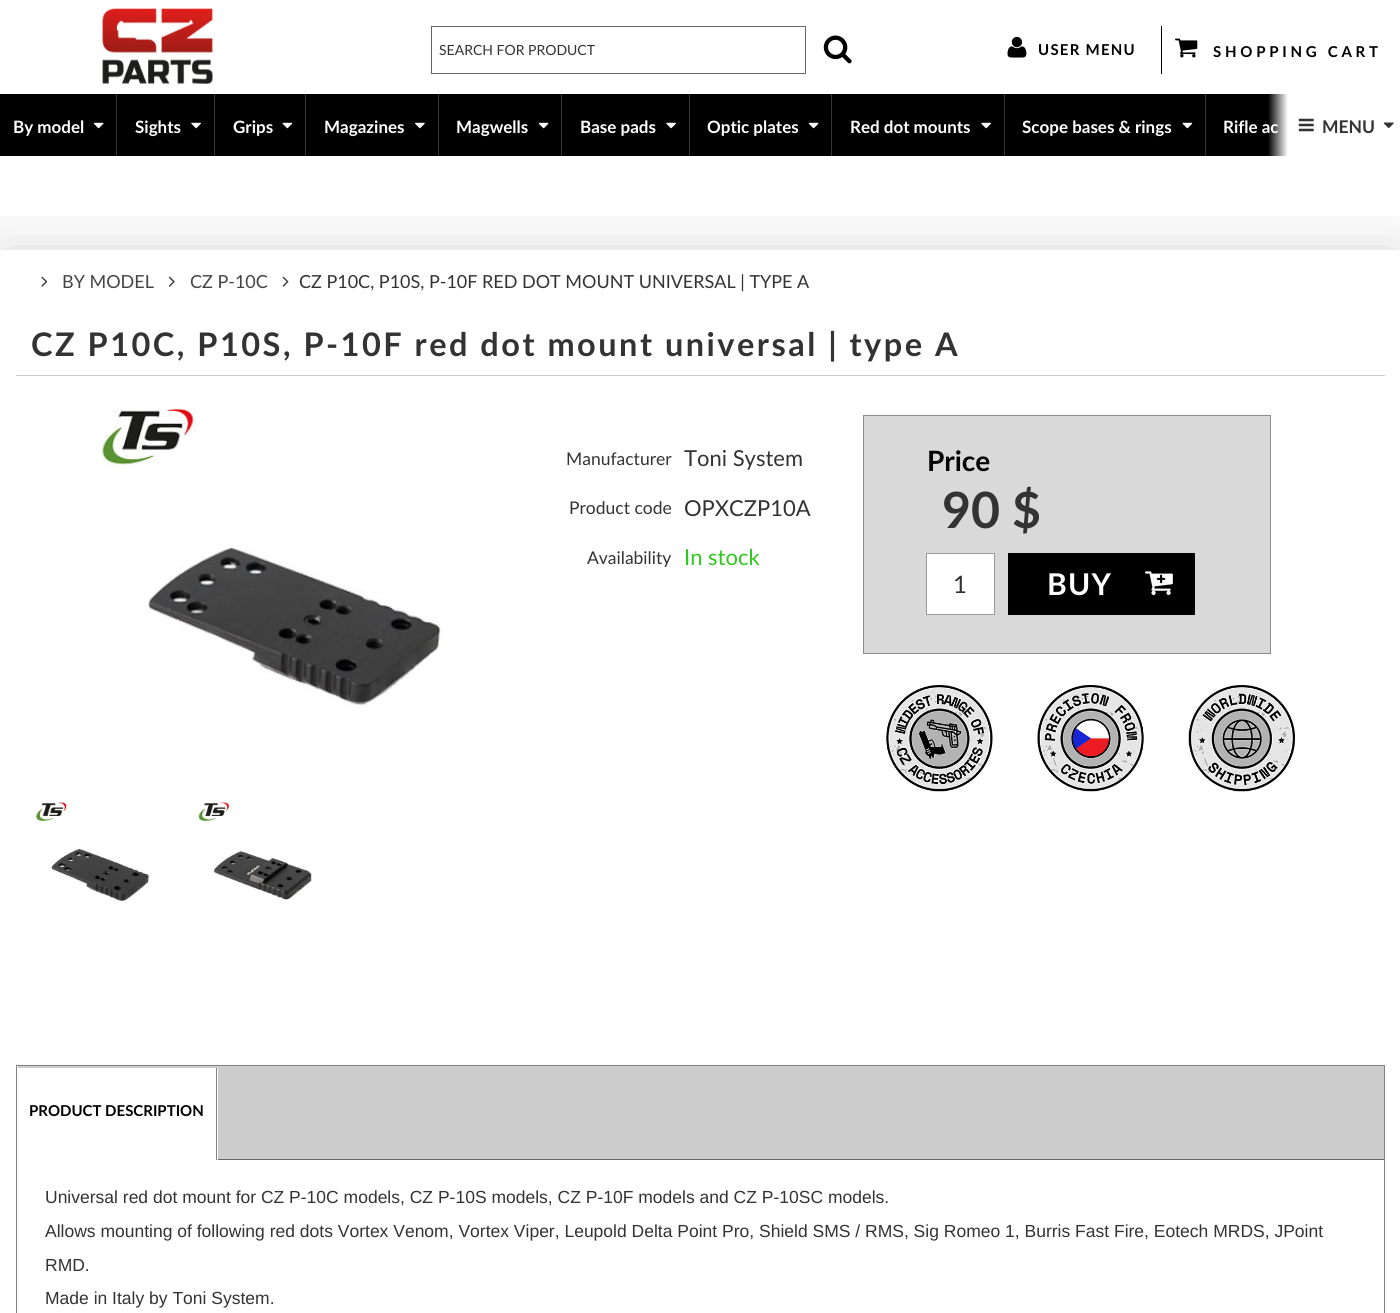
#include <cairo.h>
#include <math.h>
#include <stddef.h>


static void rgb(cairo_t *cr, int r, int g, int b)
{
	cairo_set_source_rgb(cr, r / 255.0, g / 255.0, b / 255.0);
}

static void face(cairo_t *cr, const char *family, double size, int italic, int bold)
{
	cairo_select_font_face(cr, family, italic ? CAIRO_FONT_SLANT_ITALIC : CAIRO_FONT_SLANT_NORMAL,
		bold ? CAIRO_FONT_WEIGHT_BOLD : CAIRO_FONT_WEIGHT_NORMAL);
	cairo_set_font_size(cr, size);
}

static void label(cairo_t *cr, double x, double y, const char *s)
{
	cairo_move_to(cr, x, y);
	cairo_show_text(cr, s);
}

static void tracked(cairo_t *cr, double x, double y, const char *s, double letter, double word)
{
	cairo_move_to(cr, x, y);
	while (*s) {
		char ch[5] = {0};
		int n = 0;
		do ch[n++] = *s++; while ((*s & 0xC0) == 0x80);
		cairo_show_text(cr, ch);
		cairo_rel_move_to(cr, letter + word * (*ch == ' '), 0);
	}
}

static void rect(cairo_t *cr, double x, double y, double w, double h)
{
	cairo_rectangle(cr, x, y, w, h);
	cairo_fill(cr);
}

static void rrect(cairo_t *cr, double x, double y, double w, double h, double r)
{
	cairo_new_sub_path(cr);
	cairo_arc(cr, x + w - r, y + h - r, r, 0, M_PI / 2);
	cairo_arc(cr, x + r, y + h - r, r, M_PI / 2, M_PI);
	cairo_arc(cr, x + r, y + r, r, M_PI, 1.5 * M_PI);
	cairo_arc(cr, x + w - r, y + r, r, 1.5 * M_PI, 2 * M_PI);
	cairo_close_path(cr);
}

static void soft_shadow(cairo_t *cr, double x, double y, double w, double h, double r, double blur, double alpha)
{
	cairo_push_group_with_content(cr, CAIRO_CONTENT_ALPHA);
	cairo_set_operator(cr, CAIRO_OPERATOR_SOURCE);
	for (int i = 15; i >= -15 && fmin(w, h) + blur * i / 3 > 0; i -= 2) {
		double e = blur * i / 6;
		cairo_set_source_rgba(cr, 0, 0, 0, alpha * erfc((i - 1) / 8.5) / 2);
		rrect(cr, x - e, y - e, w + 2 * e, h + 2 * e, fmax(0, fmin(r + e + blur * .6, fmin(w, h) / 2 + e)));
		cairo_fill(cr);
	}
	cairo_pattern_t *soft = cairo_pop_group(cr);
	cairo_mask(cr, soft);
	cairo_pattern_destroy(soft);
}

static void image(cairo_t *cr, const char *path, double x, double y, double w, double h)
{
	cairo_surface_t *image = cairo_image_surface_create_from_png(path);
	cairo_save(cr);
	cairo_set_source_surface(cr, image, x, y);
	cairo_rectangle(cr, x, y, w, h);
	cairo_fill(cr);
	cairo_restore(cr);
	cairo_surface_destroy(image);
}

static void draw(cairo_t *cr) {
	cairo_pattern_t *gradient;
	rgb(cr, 255, 255, 255);
	cairo_paint(cr);
	image(cr, "image0.png", 102, 8, 111, 76);
	cairo_rectangle(cr, 431.5, 26.5, 374, 47);
	rgb(cr, 102, 102, 102);
	cairo_set_line_width(cr, 1);
	cairo_stroke(cr);
	face(cr, "Lato", 14, 0, 0);
	rgb(cr, 51, 51, 51);
	label(cr, 439, 55, "SEARCH FOR PRODUCT");
	image(cr, "image1.png", 823, 35, 29, 29);
	image(cr, "image2.png", 1007, 36, 20, 22);
	face(cr, "Lato", 15, 0, 1);
	rgb(cr, 0, 0, 0);
	tracked(cr, 1038, 55, "USER MENU", 1.25, 0);
	rect(cr, 1161, 26, 1, 48);
	image(cr, "image3.png", 1175, 38, 23, 20);
	tracked(cr, 1213, 57, "SHOPPING CART", 3.75, 0);
	rect(cr, 0, 94, 1288, 62);
	rgb(cr, 51, 51, 51);
	rect(cr, 116, 94, 1, 62);
	face(cr, "Lato", 17, 0, 1);
	rgb(cr, 255, 255, 255);
	label(cr, 13, 133, "By model");
	image(cr, "image4.png", 93, 122, 11, 7);
	rgb(cr, 51, 51, 51);
	rect(cr, 214, 94, 1, 62);
	rgb(cr, 255, 255, 255);
	label(cr, 135, 133, "Sights");
	image(cr, "image5.png", 191, 122, 10, 7);
	rgb(cr, 51, 51, 51);
	rect(cr, 305, 94, 1, 62);
	rgb(cr, 255, 255, 255);
	label(cr, 233, 133, "Grips");
	image(cr, "image6.png", 282, 122, 11, 7);
	rgb(cr, 51, 51, 51);
	rect(cr, 438, 94, 1, 62);
	rgb(cr, 255, 255, 255);
	label(cr, 324, 133, "Magazines");
	image(cr, "image7.png", 415, 122, 10, 7);
	rgb(cr, 51, 51, 51);
	rect(cr, 561, 94, 1, 62);
	rgb(cr, 255, 255, 255);
	label(cr, 456, 133, "Magwells");
	image(cr, "image4.png", 538, 122, 11, 7);
	rgb(cr, 51, 51, 51);
	rect(cr, 689, 94, 1, 62);
	rgb(cr, 255, 255, 255);
	label(cr, 580, 133, "Base pads");
	image(cr, "image5.png", 666, 122, 10, 7);
	rgb(cr, 51, 51, 51);
	rect(cr, 831, 94, 1, 62);
	rgb(cr, 255, 255, 255);
	label(cr, 707, 133, "Optic plates");
	image(cr, "image4.png", 808, 122, 11, 7);
	rgb(cr, 51, 51, 51);
	rect(cr, 1004, 94, 1, 62);
	rgb(cr, 255, 255, 255);
	label(cr, 850, 133, "Red dot mounts");
	image(cr, "image5.png", 981, 122, 10, 7);
	rgb(cr, 51, 51, 51);
	rect(cr, 1205, 94, 1, 62);
	rgb(cr, 255, 255, 255);
	label(cr, 1022, 133, "Scope bases & rings");
	image(cr, "image6.png", 1182, 122, 11, 7);
	label(cr, 1223, 133, "Rifle ac");
	gradient = cairo_pattern_create_linear(1268, 125, 1400, 125);
	cairo_pattern_add_color_stop_rgba(gradient, 0, 1, 1, 1, 0);
	cairo_pattern_add_color_stop_rgba(gradient, 0.15, 1, 1, 1, 1);
	cairo_pattern_add_color_stop_rgba(gradient, 1, 1, 1, 1, 1);
	cairo_set_source(cr, gradient);
	cairo_pattern_destroy(gradient);
	rect(cr, 1268, 94, 20, 62);
	image(cr, "image8.png", 1298, 118, 16, 14);
	face(cr, "Lato", 17.5, 0, 1);
	rgb(cr, 51, 51, 51);
	label(cr, 1322, 133, "MENU");
	image(cr, "image9.png", 1383, 122, 11, 7);
	cairo_save(cr);
	cairo_rectangle(cr, 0, 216, 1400, 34);
	cairo_clip(cr);
	rgb(cr, 0, 0, 0);
	soft_shadow(cr, 0, 250, 1400, 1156, 0, 31, 0.15);
	cairo_restore(cr);
	image(cr, "image10.png", 41, 276, 7, 11);
	face(cr, "Lato", 18, 0, 0);
	rgb(cr, 68, 68, 68);
	label(cr, 62, 288, "BY MODEL");
	image(cr, "image11.png", 168, 276, 7, 11);
	label(cr, 190, 288, "CZ P-10C");
	image(cr, "image12.png", 282, 276, 7, 11);
	rgb(cr, 51, 51, 51);
	label(cr, 299, 288, "CZ P10C, P10S, P-10F RED DOT MOUNT UNIVERSAL | TYPE A");
	rgb(cr, 204, 204, 204);
	rect(cr, 16, 375, 1369, 1);
	face(cr, "Lato", 32.5, 0, 1);
	rgb(cr, 51, 51, 51);
	tracked(cr, 31, 356, "CZ P10C, P10S, P-10F red dot mount universal | type A", 2.5, 0);
	image(cr, "image13.png", 102, 408, 340, 300);
	image(cr, "image14.png", 36, 802, 113, 99);
	image(cr, "image15.png", 198, 802, 114, 98);
	face(cr, "Lato", 17.5, 0, 0);
	label(cr, 566, 465, "Manufacturer");
	face(cr, "Lato", 22, 0, 0);
	label(cr, 684, 466, "Toni System");
	face(cr, "Lato", 17.5, 0, 0);
	label(cr, 569, 514, "Product code");
	face(cr, "Lato", 22, 0, 0);
	label(cr, 684, 516, "OPXCZP10A");
	face(cr, "Lato", 17.5, 0, 0);
	label(cr, 587, 564, "Availability");
	face(cr, "Lato", 22, 0, 0);
	rgb(cr, 46, 200, 30);
	label(cr, 684, 565, "In stock");
	rgb(cr, 217, 217, 217);
	cairo_rectangle(cr, 863.5, 415.5, 407, 238);
	cairo_fill_preserve(cr);
	rgb(cr, 141, 141, 141);
	cairo_stroke(cr);
	face(cr, "Lato", 28, 0, 1);
	rgb(cr, 0, 0, 0);
	label(cr, 927, 471, "Price");
	face(cr, "Lato", 50, 0, 1);
	rgb(cr, 51, 51, 51);
	label(cr, 942, 528, "90 $");
	rgb(cr, 255, 255, 255);
	cairo_rectangle(cr, 926.5, 553.5, 68, 61);
	cairo_fill_preserve(cr);
	rgb(cr, 153, 153, 153);
	cairo_stroke(cr);
	face(cr, "Lato", 24, 0, 0);
	rgb(cr, 51, 51, 51);
	label(cr, 953, 593, "1");
	rgb(cr, 0, 0, 0);
	rect(cr, 1008, 553, 187, 62);
	face(cr, "Lato", 30, 0, 1);
	rgb(cr, 255, 255, 255);
	tracked(cr, 1047, 595, "BUY", 1.25, 0);
	image(cr, "image16.png", 1145, 571, 28, 24);
	image(cr, "image17.png", 886, 685, 107, 107);
	image(cr, "image18.png", 1037, 685, 107, 107);
	image(cr, "image19.png", 1188, 685, 107, 107);
	cairo_rectangle(cr, 16.5, 1065.5, 1368, 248);
	rgb(cr, 128, 128, 128);
	cairo_stroke(cr);
	rgb(cr, 204, 204, 204);
	rect(cr, 18, 1066, 1366, 93);
	rgb(cr, 102, 102, 102);
	rect(cr, 218, 1159, 1166, 1);
	rgb(cr, 255, 255, 255);
	rect(cr, 18, 1068, 200, 91);
	rgb(cr, 128, 128, 128);
	rect(cr, 216, 1068, 1, 92);
	face(cr, "Lato", 15, 0, 1);
	rgb(cr, 0, 0, 0);
	label(cr, 29, 1116, "PRODUCT DESCRIPTION");
	face(cr, "Liberation Sans", 17.5, 0, 0);
	rgb(cr, 51, 51, 51);
	label(cr, 45, 1203, "Universal red dot mount for CZ P-10C models, CZ P-10S models, CZ P-10F models and CZ P-10SC models.");
	label(cr, 45, 1237, "Allows mounting of following red dots Vortex Venom, Vortex Viper, Leupold Delta Point Pro, Shield SMS / RMS, Sig Romeo 1, Burris Fast Fire, Eotech MRDS, JPoint");
	label(cr, 45, 1271, "RMD.");
	label(cr, 45, 1304, "Made in Italy by Toni System.");
}

int main(void) {
	cairo_surface_t *surface = cairo_image_surface_create(CAIRO_FORMAT_RGB24, 1400, 1313);
	cairo_t *cr = cairo_create(surface);
	cairo_font_options_t *options = cairo_font_options_create();
	cairo_font_options_set_hint_metrics(options, CAIRO_HINT_METRICS_OFF);
	cairo_font_options_set_hint_style(options, CAIRO_HINT_STYLE_NONE);
	cairo_set_font_options(cr, options);
	cairo_set_miter_limit(cr, 4);
	draw(cr);
	cairo_surface_write_to_png(surface, "render.png");
	cairo_font_options_destroy(options);
	cairo_destroy(cr);
	cairo_surface_destroy(surface);
	return 0;
}
